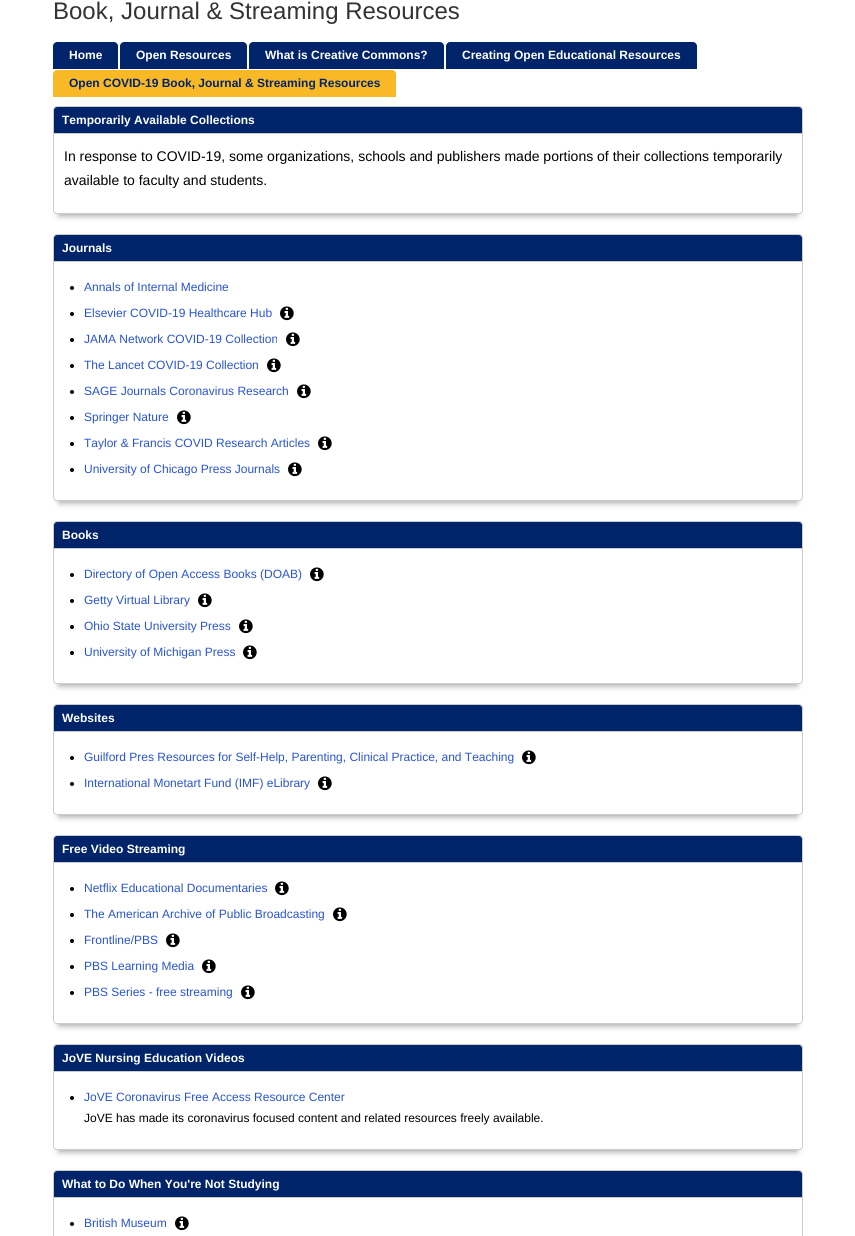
#include <cairo.h>
#include <math.h>
#include <stddef.h>


static void rgb(cairo_t *cr, int r, int g, int b)
{
	cairo_set_source_rgb(cr, r / 255.0, g / 255.0, b / 255.0);
}

static void face(cairo_t *cr, const char *family, double size, int italic, int bold)
{
	cairo_select_font_face(cr, family, italic ? CAIRO_FONT_SLANT_ITALIC : CAIRO_FONT_SLANT_NORMAL,
		bold ? CAIRO_FONT_WEIGHT_BOLD : CAIRO_FONT_WEIGHT_NORMAL);
	cairo_set_font_size(cr, size);
}

static void label(cairo_t *cr, double x, double y, const char *s)
{
	cairo_move_to(cr, x, y);
	cairo_show_text(cr, s);
}

static void rect(cairo_t *cr, double x, double y, double w, double h)
{
	cairo_rectangle(cr, x, y, w, h);
	cairo_fill(cr);
}

static void rrect(cairo_t *cr, double x, double y, double w, double h, double r)
{
	cairo_new_sub_path(cr);
	cairo_arc(cr, x + w - r, y + h - r, r, 0, M_PI / 2);
	cairo_arc(cr, x + r, y + h - r, r, M_PI / 2, M_PI);
	cairo_arc(cr, x + r, y + r, r, M_PI, 1.5 * M_PI);
	cairo_arc(cr, x + w - r, y + r, r, 1.5 * M_PI, 2 * M_PI);
	cairo_close_path(cr);
}

static void soft_shadow(cairo_t *cr, double x, double y, double w, double h, double r, double blur, double alpha)
{
	cairo_push_group_with_content(cr, CAIRO_CONTENT_ALPHA);
	cairo_set_operator(cr, CAIRO_OPERATOR_SOURCE);
	for (int i = 15; i >= -15 && fmin(w, h) + blur * i / 3 > 0; i -= 2) {
		double e = blur * i / 6;
		cairo_set_source_rgba(cr, 0, 0, 0, alpha * erfc((i - 1) / 8.5) / 2);
		rrect(cr, x - e, y - e, w + 2 * e, h + 2 * e, fmax(0, fmin(r + e + blur * .6, fmin(w, h) / 2 + e)));
		cairo_fill(cr);
	}
	cairo_pattern_t *soft = cairo_pop_group(cr);
	cairo_mask(cr, soft);
	cairo_pattern_destroy(soft);
}

static void image(cairo_t *cr, const char *path, double x, double y, double w, double h)
{
	cairo_surface_t *image = cairo_image_surface_create_from_png(path);
	cairo_save(cr);
	cairo_set_source_surface(cr, image, x, y);
	cairo_rectangle(cr, x, y, w, h);
	cairo_fill(cr);
	cairo_restore(cr);
	cairo_surface_destroy(image);
}

static void draw(cairo_t *cr) {
	rgb(cr, 255, 255, 255);
	cairo_paint(cr);
	face(cr, "Liberation Sans", 24, 0, 0);
	rgb(cr, 51, 51, 51);
	label(cr, 53, 19, "Book, Journal & Streaming Resources");
	rgb(cr, 0, 36, 105);
	cairo_new_path(cr);
	cairo_move_to(cr, 57, 42);
	cairo_line_to(cr, 114, 42);
	cairo_curve_to(cr, 116, 42, 118, 44, 118, 46);
	cairo_line_to(cr, 118, 69);
	cairo_line_to(cr, 53, 69);
	cairo_line_to(cr, 53, 46);
	cairo_curve_to(cr, 53, 44, 55, 42, 57, 42);
	cairo_close_path(cr);
	cairo_fill(cr);
	face(cr, "Liberation Sans", 12, 0, 1);
	rgb(cr, 255, 255, 255);
	label(cr, 69, 59, "Home");
	rgb(cr, 0, 36, 105);
	cairo_new_path(cr);
	cairo_move_to(cr, 124, 42);
	cairo_line_to(cr, 243, 42);
	cairo_curve_to(cr, 245, 42, 247, 44, 247, 46);
	cairo_line_to(cr, 247, 69);
	cairo_line_to(cr, 120, 69);
	cairo_line_to(cr, 120, 46);
	cairo_curve_to(cr, 120, 44, 122, 42, 124, 42);
	cairo_close_path(cr);
	cairo_fill(cr);
	rgb(cr, 255, 255, 255);
	label(cr, 136, 59, "Open Resources");
	rgb(cr, 0, 36, 105);
	cairo_new_path(cr);
	cairo_move_to(cr, 253, 42);
	cairo_line_to(cr, 440, 42);
	cairo_curve_to(cr, 442, 42, 444, 44, 444, 46);
	cairo_line_to(cr, 444, 69);
	cairo_line_to(cr, 249, 69);
	cairo_line_to(cr, 249, 46);
	cairo_curve_to(cr, 249, 44, 251, 42, 253, 42);
	cairo_close_path(cr);
	cairo_fill(cr);
	rgb(cr, 255, 255, 255);
	label(cr, 265, 59, "What is Creative Commons?");
	rgb(cr, 0, 36, 105);
	cairo_new_path(cr);
	cairo_move_to(cr, 450, 42);
	cairo_line_to(cr, 693, 42);
	cairo_curve_to(cr, 695, 42, 697, 44, 697, 46);
	cairo_line_to(cr, 697, 69);
	cairo_line_to(cr, 446, 69);
	cairo_line_to(cr, 446, 46);
	cairo_curve_to(cr, 446, 44, 448, 42, 450, 42);
	cairo_close_path(cr);
	cairo_fill(cr);
	rgb(cr, 255, 255, 255);
	label(cr, 462, 59, "Creating Open Educational Resources");
	rgb(cr, 249, 184, 38);
	cairo_new_path(cr);
	cairo_move_to(cr, 57, 70);
	cairo_line_to(cr, 392, 70);
	cairo_curve_to(cr, 394, 70, 396, 72, 396, 74);
	cairo_line_to(cr, 396, 97);
	cairo_line_to(cr, 53, 97);
	cairo_line_to(cr, 53, 74);
	cairo_curve_to(cr, 53, 72, 55, 70, 57, 70);
	cairo_close_path(cr);
	cairo_fill(cr);
	rgb(cr, 0, 36, 105);
	label(cr, 69, 87, "Open COVID-19 Book, Journal & Streaming Resources");
	rgb(cr, 170, 170, 170);
	soft_shadow(cr, 59, 120, 738, 96, 0, 3, 1);
	rgb(cr, 255, 255, 255);
	rrect(cr, 53.5, 106.5, 749, 107, 3.5);
	cairo_fill_preserve(cr);
	rgb(cr, 204, 204, 204);
	cairo_set_line_width(cr, 1);
	cairo_stroke(cr);
	rgb(cr, 0, 36, 105);
	cairo_new_path(cr);
	cairo_move_to(cr, 57, 107);
	cairo_line_to(cr, 799, 107);
	cairo_curve_to(cr, 800.5, 107, 802, 108.5, 802, 110);
	cairo_line_to(cr, 802, 134);
	cairo_line_to(cr, 54, 134);
	cairo_line_to(cr, 54, 110);
	cairo_curve_to(cr, 54, 108.5, 55.5, 107, 57, 107);
	cairo_close_path(cr);
	cairo_fill(cr);
	rgb(cr, 204, 204, 204);
	rect(cr, 54, 133, 748, 1);
	rgb(cr, 255, 255, 255);
	label(cr, 62, 124, "Temporarily Available Collections");
	face(cr, "Liberation Sans", 14, 0, 0);
	rgb(cr, 0, 0, 0);
	label(cr, 64, 161, "In response to COVID-19, some organizations, schools and publishers made portions of their collections temporarily");
	label(cr, 64, 185, "available to faculty and students.");
	rgb(cr, 170, 170, 170);
	soft_shadow(cr, 59, 248, 738, 255, 0, 3, 1);
	rgb(cr, 255, 255, 255);
	rrect(cr, 53.5, 234.5, 749, 266, 3.5);
	cairo_fill_preserve(cr);
	rgb(cr, 204, 204, 204);
	cairo_stroke(cr);
	rgb(cr, 0, 36, 105);
	cairo_new_path(cr);
	cairo_move_to(cr, 57, 235);
	cairo_line_to(cr, 799, 235);
	cairo_curve_to(cr, 800.5, 235, 802, 236.5, 802, 238);
	cairo_line_to(cr, 802, 262);
	cairo_line_to(cr, 54, 262);
	cairo_line_to(cr, 54, 238);
	cairo_curve_to(cr, 54, 236.5, 55.5, 235, 57, 235);
	cairo_close_path(cr);
	cairo_fill(cr);
	rgb(cr, 204, 204, 204);
	rect(cr, 54, 261, 748, 1);
	face(cr, "Liberation Sans", 12, 0, 1);
	rgb(cr, 255, 255, 255);
	label(cr, 62, 252, "Journals");
	rgb(cr, 0, 0, 0);
	cairo_new_path(cr);
	cairo_arc(cr, 72, 288, 2, 0, 2 * M_PI);
	cairo_fill(cr);
	face(cr, "Liberation Sans", 12, 0, 0);
	rgb(cr, 41, 84, 209);
	label(cr, 84, 291, "Annals of Internal Medicine");
	rgb(cr, 0, 0, 0);
	cairo_new_path(cr);
	cairo_arc(cr, 72, 314, 2, 0, 2 * M_PI);
	cairo_fill(cr);
	rgb(cr, 41, 84, 209);
	label(cr, 84, 317, "Elsevier COVID-19 Healthcare Hub");
	image(cr, "image0.png", 280, 306, 14, 15);
	rgb(cr, 0, 0, 0);
	cairo_arc(cr, 72, 340, 2, 0, 2 * M_PI);
	cairo_fill(cr);
	rgb(cr, 41, 84, 209);
	label(cr, 84, 343, "JAMA Network COVID-19 Collection");
	image(cr, "image0.png", 286, 332, 14, 15);
	rgb(cr, 0, 0, 0);
	cairo_arc(cr, 72, 366, 2, 0, 2 * M_PI);
	cairo_fill(cr);
	rgb(cr, 41, 84, 209);
	label(cr, 84, 369, "The Lancet COVID-19 Collection");
	image(cr, "image0.png", 267, 358, 14, 15);
	rgb(cr, 0, 0, 0);
	cairo_arc(cr, 72, 392, 2, 0, 2 * M_PI);
	cairo_fill(cr);
	rgb(cr, 41, 84, 209);
	label(cr, 84, 395, "SAGE Journals Coronavirus Research");
	image(cr, "image0.png", 297, 384, 14, 15);
	rgb(cr, 0, 0, 0);
	cairo_arc(cr, 72, 418, 2, 0, 2 * M_PI);
	cairo_fill(cr);
	rgb(cr, 41, 84, 209);
	label(cr, 84, 421, "Springer Nature");
	image(cr, "image0.png", 177, 410, 14, 15);
	rgb(cr, 0, 0, 0);
	cairo_arc(cr, 72, 444, 2, 0, 2 * M_PI);
	cairo_fill(cr);
	rgb(cr, 41, 84, 209);
	label(cr, 84, 447, "Taylor & Francis COVID Research Articles");
	image(cr, "image0.png", 318, 436, 14, 15);
	rgb(cr, 0, 0, 0);
	cairo_arc(cr, 72, 470, 2, 0, 2 * M_PI);
	cairo_fill(cr);
	rgb(cr, 41, 84, 209);
	label(cr, 84, 473, "University of Chicago Press Journals");
	image(cr, "image0.png", 288, 462, 14, 15);
	rgb(cr, 170, 170, 170);
	soft_shadow(cr, 59, 535, 738, 151, 0, 3, 1);
	rgb(cr, 255, 255, 255);
	rrect(cr, 53.5, 521.5, 749, 162, 3.5);
	cairo_fill_preserve(cr);
	rgb(cr, 204, 204, 204);
	cairo_stroke(cr);
	rgb(cr, 0, 36, 105);
	cairo_new_path(cr);
	cairo_move_to(cr, 57, 522);
	cairo_line_to(cr, 799, 522);
	cairo_curve_to(cr, 800.5, 522, 802, 523.5, 802, 525);
	cairo_line_to(cr, 802, 549);
	cairo_line_to(cr, 54, 549);
	cairo_line_to(cr, 54, 525);
	cairo_curve_to(cr, 54, 523.5, 55.5, 522, 57, 522);
	cairo_close_path(cr);
	cairo_fill(cr);
	rgb(cr, 204, 204, 204);
	rect(cr, 54, 548, 748, 1);
	face(cr, "Liberation Sans", 12, 0, 1);
	rgb(cr, 255, 255, 255);
	label(cr, 62, 539, "Books");
	rgb(cr, 0, 0, 0);
	cairo_new_path(cr);
	cairo_arc(cr, 72, 575, 2, 0, 2 * M_PI);
	cairo_fill(cr);
	face(cr, "Liberation Sans", 12, 0, 0);
	rgb(cr, 41, 84, 209);
	label(cr, 84, 578, "Directory of Open Access Books (DOAB)");
	image(cr, "image0.png", 310, 567, 14, 15);
	rgb(cr, 0, 0, 0);
	cairo_arc(cr, 72, 601, 2, 0, 2 * M_PI);
	cairo_fill(cr);
	rgb(cr, 41, 84, 209);
	label(cr, 84, 604, "Getty Virtual Library");
	image(cr, "image0.png", 198, 593, 14, 15);
	rgb(cr, 0, 0, 0);
	cairo_arc(cr, 72, 627, 2, 0, 2 * M_PI);
	cairo_fill(cr);
	rgb(cr, 41, 84, 209);
	label(cr, 84, 630, "Ohio State University Press");
	image(cr, "image0.png", 239, 619, 14, 15);
	rgb(cr, 0, 0, 0);
	cairo_arc(cr, 72, 653, 2, 0, 2 * M_PI);
	cairo_fill(cr);
	rgb(cr, 41, 84, 209);
	label(cr, 84, 656, "University of Michigan Press");
	image(cr, "image0.png", 243, 645, 14, 15);
	rgb(cr, 170, 170, 170);
	soft_shadow(cr, 59, 718, 738, 99, 0, 3, 1);
	rgb(cr, 255, 255, 255);
	rrect(cr, 53.5, 704.5, 749, 110, 3.5);
	cairo_fill_preserve(cr);
	rgb(cr, 204, 204, 204);
	cairo_stroke(cr);
	rgb(cr, 0, 36, 105);
	cairo_new_path(cr);
	cairo_move_to(cr, 57, 705);
	cairo_line_to(cr, 799, 705);
	cairo_curve_to(cr, 800.5, 705, 802, 706.5, 802, 708);
	cairo_line_to(cr, 802, 732);
	cairo_line_to(cr, 54, 732);
	cairo_line_to(cr, 54, 708);
	cairo_curve_to(cr, 54, 706.5, 55.5, 705, 57, 705);
	cairo_close_path(cr);
	cairo_fill(cr);
	rgb(cr, 204, 204, 204);
	rect(cr, 54, 731, 748, 1);
	face(cr, "Liberation Sans", 12, 0, 1);
	rgb(cr, 255, 255, 255);
	label(cr, 62, 722, "Websites");
	rgb(cr, 0, 0, 0);
	cairo_new_path(cr);
	cairo_arc(cr, 72, 758, 2, 0, 2 * M_PI);
	cairo_fill(cr);
	face(cr, "Liberation Sans", 12, 0, 0);
	rgb(cr, 41, 84, 209);
	label(cr, 84, 761, "Guilford Pres Resources for Self-Help, Parenting, Clinical Practice, and Teaching");
	image(cr, "image0.png", 522, 750, 14, 15);
	rgb(cr, 0, 0, 0);
	cairo_arc(cr, 72, 784, 2, 0, 2 * M_PI);
	cairo_fill(cr);
	rgb(cr, 41, 84, 209);
	label(cr, 84, 787, "International Monetart Fund (IMF) eLibrary");
	image(cr, "image0.png", 318, 776, 14, 15);
	rgb(cr, 170, 170, 170);
	soft_shadow(cr, 59, 849, 738, 177, 0, 3, 1);
	rgb(cr, 255, 255, 255);
	rrect(cr, 53.5, 835.5, 749, 188, 3.5);
	cairo_fill_preserve(cr);
	rgb(cr, 204, 204, 204);
	cairo_stroke(cr);
	rgb(cr, 0, 36, 105);
	cairo_new_path(cr);
	cairo_move_to(cr, 57, 836);
	cairo_line_to(cr, 799, 836);
	cairo_curve_to(cr, 800.5, 836, 802, 837.5, 802, 839);
	cairo_line_to(cr, 802, 863);
	cairo_line_to(cr, 54, 863);
	cairo_line_to(cr, 54, 839);
	cairo_curve_to(cr, 54, 837.5, 55.5, 836, 57, 836);
	cairo_close_path(cr);
	cairo_fill(cr);
	rgb(cr, 204, 204, 204);
	rect(cr, 54, 862, 748, 1);
	face(cr, "Liberation Sans", 12, 0, 1);
	rgb(cr, 255, 255, 255);
	label(cr, 62, 853, "Free Video Streaming");
	rgb(cr, 0, 0, 0);
	cairo_new_path(cr);
	cairo_arc(cr, 72, 889, 2, 0, 2 * M_PI);
	cairo_fill(cr);
	face(cr, "Liberation Sans", 12, 0, 0);
	rgb(cr, 41, 84, 209);
	label(cr, 84, 892, "Netflix Educational Documentaries");
	image(cr, "image0.png", 275, 881, 14, 15);
	rgb(cr, 0, 0, 0);
	cairo_arc(cr, 72, 915, 2, 0, 2 * M_PI);
	cairo_fill(cr);
	rgb(cr, 41, 84, 209);
	label(cr, 84, 918, "The American Archive of Public Broadcasting");
	image(cr, "image0.png", 333, 907, 14, 15);
	rgb(cr, 0, 0, 0);
	cairo_arc(cr, 72, 941, 2, 0, 2 * M_PI);
	cairo_fill(cr);
	rgb(cr, 41, 84, 209);
	label(cr, 84, 944, "Frontline/PBS");
	image(cr, "image0.png", 166, 933, 14, 15);
	rgb(cr, 0, 0, 0);
	cairo_arc(cr, 72, 967, 2, 0, 2 * M_PI);
	cairo_fill(cr);
	rgb(cr, 41, 84, 209);
	label(cr, 84, 970, "PBS Learning Media");
	image(cr, "image0.png", 202, 959, 14, 15);
	rgb(cr, 0, 0, 0);
	cairo_arc(cr, 72, 993, 2, 0, 2 * M_PI);
	cairo_fill(cr);
	rgb(cr, 41, 84, 209);
	label(cr, 84, 996, "PBS Series - free streaming");
	image(cr, "image0.png", 241, 985, 14, 15);
	rgb(cr, 170, 170, 170);
	soft_shadow(cr, 59, 1058, 738, 94, 0, 3, 1);
	rgb(cr, 255, 255, 255);
	rrect(cr, 53.5, 1044.5, 749, 105, 3.5);
	cairo_fill_preserve(cr);
	rgb(cr, 204, 204, 204);
	cairo_stroke(cr);
	rgb(cr, 0, 36, 105);
	cairo_new_path(cr);
	cairo_move_to(cr, 57, 1045);
	cairo_line_to(cr, 799, 1045);
	cairo_curve_to(cr, 800.5, 1045, 802, 1046.5, 802, 1048);
	cairo_line_to(cr, 802, 1072);
	cairo_line_to(cr, 54, 1072);
	cairo_line_to(cr, 54, 1048);
	cairo_curve_to(cr, 54, 1046.5, 55.5, 1045, 57, 1045);
	cairo_close_path(cr);
	cairo_fill(cr);
	rgb(cr, 204, 204, 204);
	rect(cr, 54, 1071, 748, 1);
	face(cr, "Liberation Sans", 12, 0, 1);
	rgb(cr, 255, 255, 255);
	label(cr, 62, 1062, "JoVE Nursing Education Videos");
	rgb(cr, 0, 0, 0);
	cairo_new_path(cr);
	cairo_arc(cr, 72, 1098, 2, 0, 2 * M_PI);
	cairo_fill(cr);
	face(cr, "Liberation Sans", 12, 0, 0);
	rgb(cr, 41, 84, 209);
	label(cr, 84, 1101, "JoVE Coronavirus Free Access Resource Center");
	rgb(cr, 0, 0, 0);
	label(cr, 84, 1122, "JoVE has made its coronavirus focused content and related resources freely available.");
	rrect(cr, 53.5, 1170.5, 749, 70, 3.5);
	rgb(cr, 204, 204, 204);
	cairo_stroke(cr);
	rgb(cr, 0, 36, 105);
	cairo_new_path(cr);
	cairo_move_to(cr, 57, 1171);
	cairo_line_to(cr, 799, 1171);
	cairo_curve_to(cr, 800.5, 1171, 802, 1172.5, 802, 1174);
	cairo_line_to(cr, 802, 1198);
	cairo_line_to(cr, 54, 1198);
	cairo_line_to(cr, 54, 1174);
	cairo_curve_to(cr, 54, 1172.5, 55.5, 1171, 57, 1171);
	cairo_close_path(cr);
	cairo_fill(cr);
	rgb(cr, 204, 204, 204);
	rect(cr, 54, 1197, 748, 1);
	face(cr, "Liberation Sans", 12, 0, 1);
	rgb(cr, 255, 255, 255);
	label(cr, 62, 1188, "What to Do When You're Not Studying");
	rgb(cr, 0, 0, 0);
	cairo_new_path(cr);
	cairo_arc(cr, 72, 1224, 2, 0, 2 * M_PI);
	cairo_fill(cr);
	face(cr, "Liberation Sans", 12, 0, 0);
	rgb(cr, 41, 84, 209);
	label(cr, 84, 1227, "British Museum");
	image(cr, "image0.png", 175, 1216, 14, 15);
}

int main(void) {
	cairo_surface_t *surface = cairo_image_surface_create(CAIRO_FORMAT_RGB24, 855, 1236);
	cairo_t *cr = cairo_create(surface);
	cairo_font_options_t *options = cairo_font_options_create();
	cairo_font_options_set_hint_metrics(options, CAIRO_HINT_METRICS_OFF);
	cairo_font_options_set_hint_style(options, CAIRO_HINT_STYLE_NONE);
	cairo_set_font_options(cr, options);
	cairo_set_miter_limit(cr, 4);
	draw(cr);
	cairo_surface_write_to_png(surface, "render.png");
	cairo_font_options_destroy(options);
	cairo_destroy(cr);
	cairo_surface_destroy(surface);
	return 0;
}
